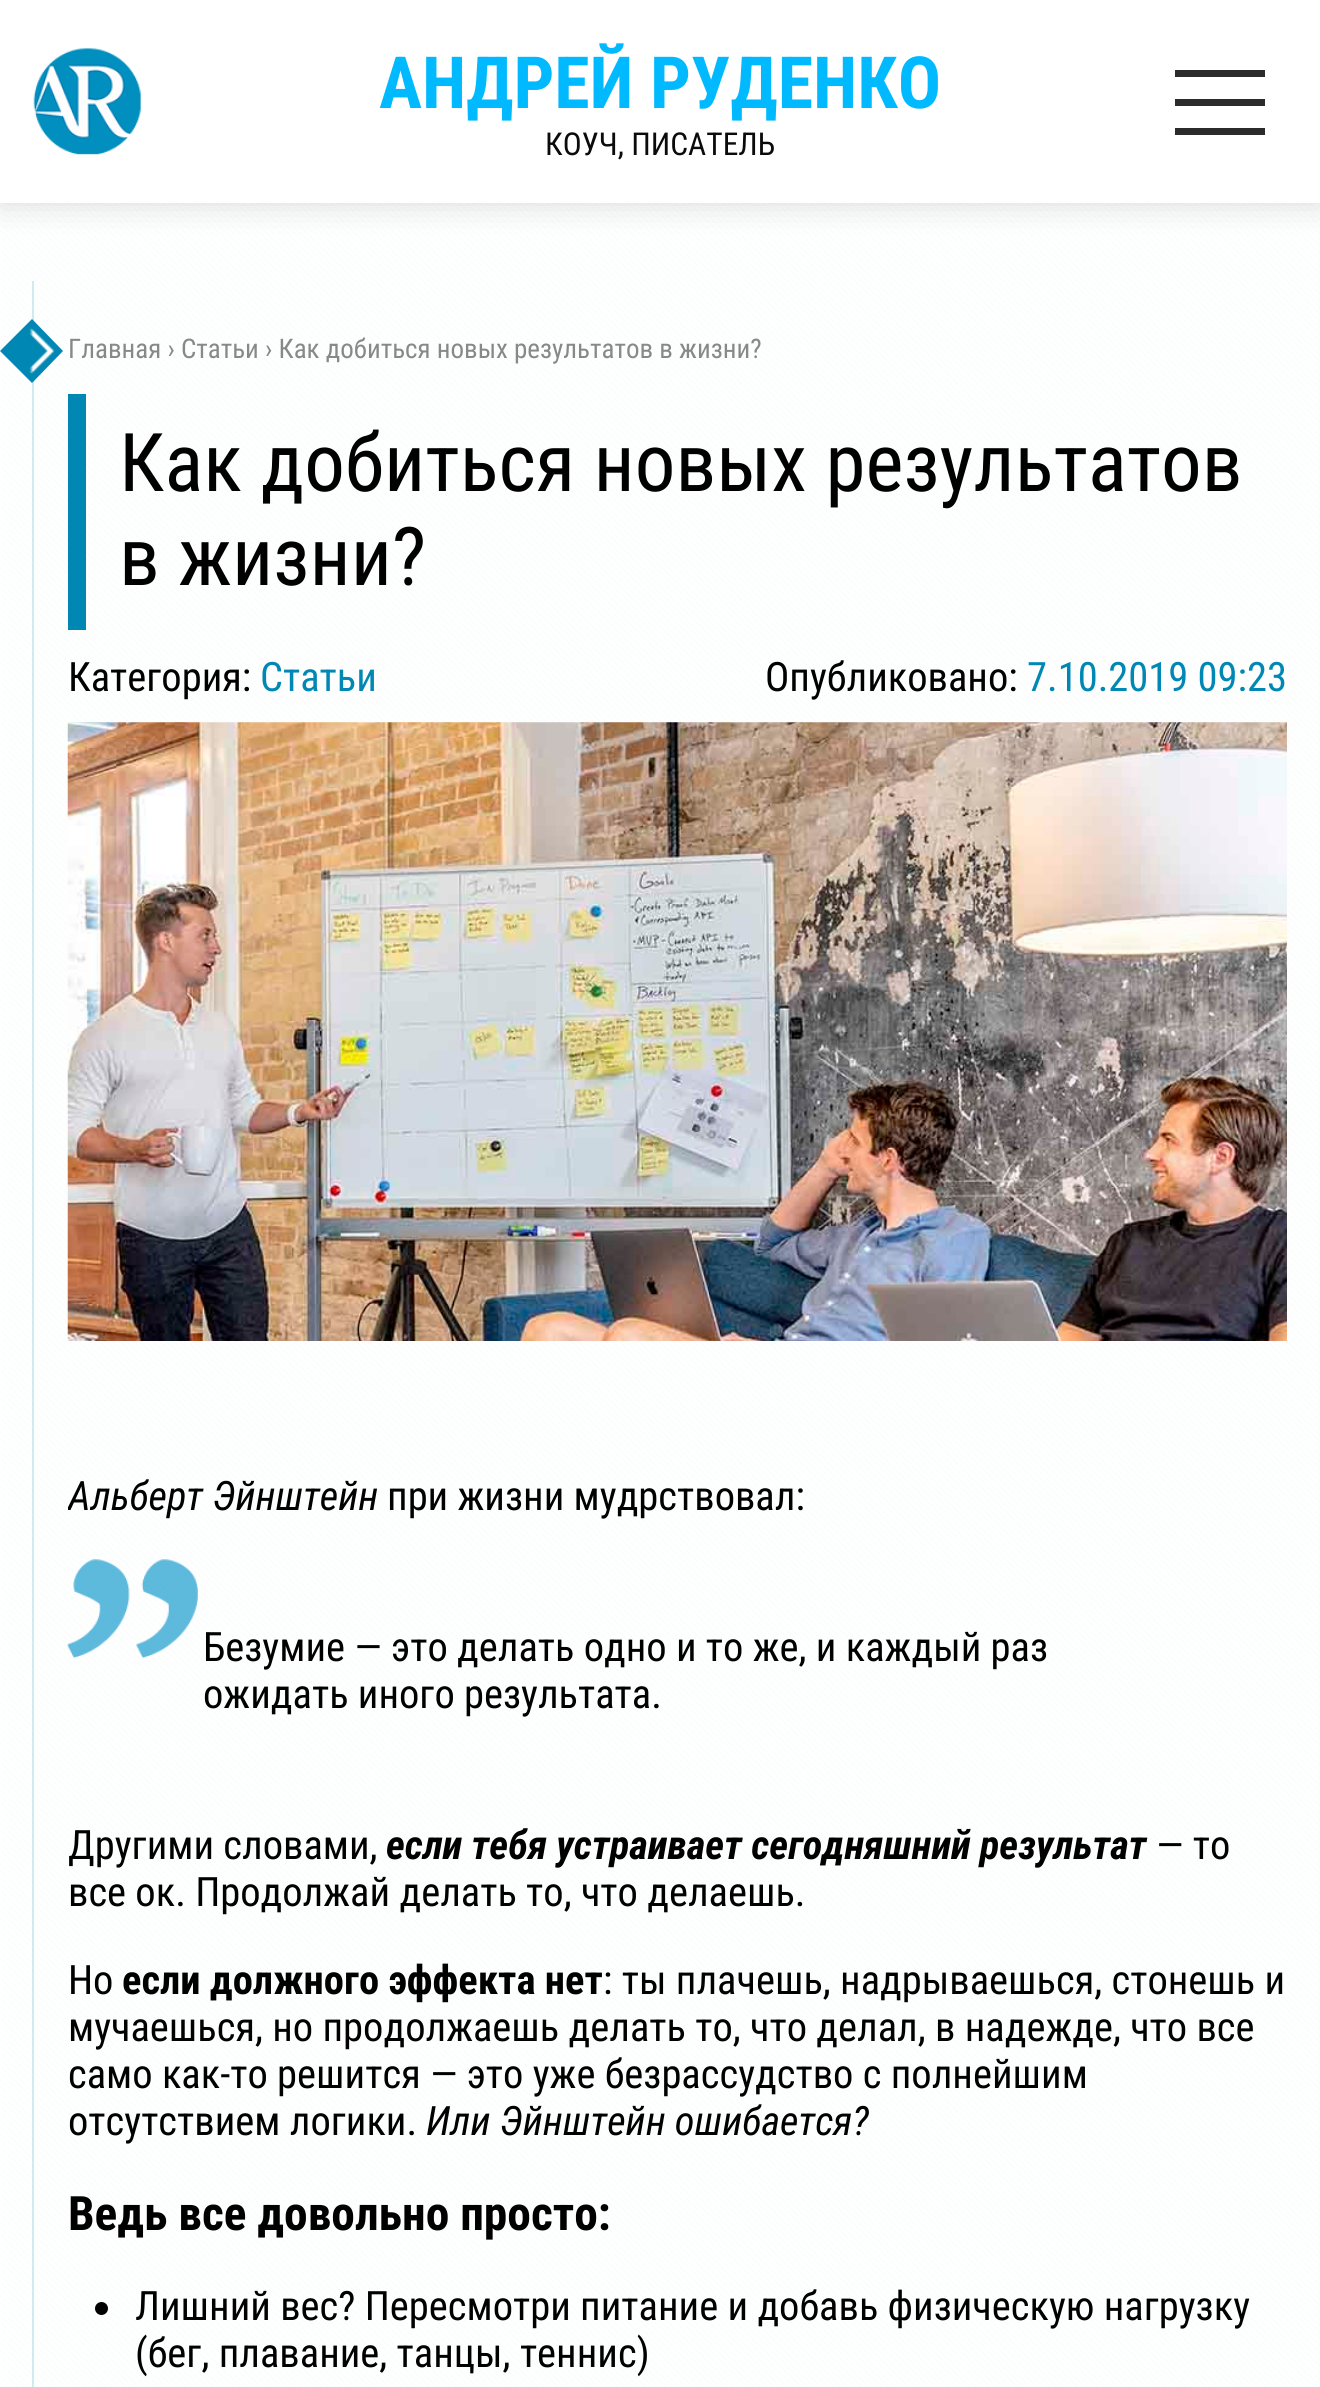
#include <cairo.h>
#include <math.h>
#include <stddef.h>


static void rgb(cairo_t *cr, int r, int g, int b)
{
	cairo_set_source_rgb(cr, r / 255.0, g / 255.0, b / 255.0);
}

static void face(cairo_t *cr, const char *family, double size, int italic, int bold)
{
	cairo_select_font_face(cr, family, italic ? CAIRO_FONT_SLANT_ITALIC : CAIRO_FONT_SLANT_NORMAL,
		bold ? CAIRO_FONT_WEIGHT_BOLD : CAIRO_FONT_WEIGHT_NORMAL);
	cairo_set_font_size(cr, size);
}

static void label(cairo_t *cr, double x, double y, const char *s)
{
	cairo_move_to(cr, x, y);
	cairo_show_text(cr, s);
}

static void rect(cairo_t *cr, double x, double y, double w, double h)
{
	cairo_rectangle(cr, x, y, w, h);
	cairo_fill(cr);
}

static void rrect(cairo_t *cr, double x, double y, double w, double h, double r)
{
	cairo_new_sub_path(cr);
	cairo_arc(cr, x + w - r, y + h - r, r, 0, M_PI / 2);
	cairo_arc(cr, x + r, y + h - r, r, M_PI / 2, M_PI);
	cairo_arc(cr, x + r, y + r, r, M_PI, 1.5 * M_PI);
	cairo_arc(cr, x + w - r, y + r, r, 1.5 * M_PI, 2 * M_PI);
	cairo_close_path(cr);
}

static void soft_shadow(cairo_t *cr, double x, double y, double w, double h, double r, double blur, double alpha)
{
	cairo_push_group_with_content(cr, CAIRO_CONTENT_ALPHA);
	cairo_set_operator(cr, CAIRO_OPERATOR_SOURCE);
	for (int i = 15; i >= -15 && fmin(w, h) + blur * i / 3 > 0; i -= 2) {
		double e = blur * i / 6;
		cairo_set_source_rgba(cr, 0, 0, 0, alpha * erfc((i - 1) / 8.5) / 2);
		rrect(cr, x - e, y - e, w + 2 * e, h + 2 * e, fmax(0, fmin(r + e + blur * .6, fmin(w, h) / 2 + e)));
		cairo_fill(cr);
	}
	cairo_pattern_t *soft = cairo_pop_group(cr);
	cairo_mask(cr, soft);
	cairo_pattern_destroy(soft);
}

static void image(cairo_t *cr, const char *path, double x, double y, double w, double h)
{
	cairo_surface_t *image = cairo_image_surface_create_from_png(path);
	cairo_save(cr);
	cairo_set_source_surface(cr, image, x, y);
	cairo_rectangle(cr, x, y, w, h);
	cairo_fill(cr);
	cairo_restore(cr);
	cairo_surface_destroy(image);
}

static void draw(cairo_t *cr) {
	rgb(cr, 255, 255, 255);
	cairo_paint(cr);
	image(cr, "image0.png", 1, 203, 1319, 2184);
	rgb(cr, 0, 0, 0);
	soft_shadow(cr, 0, 0, 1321, 203, 0, 17, 0.15);
	rgb(cr, 255, 255, 255);
	rect(cr, 0, 0, 1320, 203);
	image(cr, "image1.png", 33, 48, 108, 107);
	face(cr, "Roboto Condensed", 72, 0, 1);
	rgb(cr, 0, 185, 255);
	label(cr, 379, 108, "АНДРЕЙ РУДЕНКО");
	face(cr, "Roboto Condensed", 31.5, 0, 0);
	rgb(cr, 11, 11, 11);
	label(cr, 545, 155, "КОУЧ, ПИСАТЕЛЬ");
	rgb(cr, 43, 43, 43);
	rect(cr, 1175, 70, 90, 7);
	rect(cr, 1175, 128, 90, 7);
	rect(cr, 1175, 99, 90, 7);
	cairo_set_source_rgba(cr, 0.059, 0.651, 0.71, 0.2);
	rect(cr, 32, 281, 2, 2106);
	rgb(cr, 0, 135, 180);
	cairo_new_path(cr);
	cairo_move_to(cr, 32, 319);
	cairo_line_to(cr, 63, 351);
	cairo_line_to(cr, 32, 383);
	cairo_line_to(cr, 0, 351);
	cairo_close_path(cr);
	cairo_fill(cr);
	image(cr, "image2.png", 29, 328, 26, 46);
	face(cr, "Roboto Condensed", 27, 0, 0);
	rgb(cr, 136, 136, 136);
	label(cr, 68, 358, "Главная › Статьи › Как добиться новых результатов в жизни?");
	rgb(cr, 0, 135, 180);
	rect(cr, 68, 394, 18, 236);
	face(cr, "Roboto Condensed", 81, 0, 0);
	rgb(cr, 0, 0, 0);
	label(cr, 119, 491, "Как добиться новых результатов");
	label(cr, 119, 585, "в жизни?");
	face(cr, "Roboto Condensed", 40.5, 0, 0);
	label(cr, 68, 691, "Категория:");
	rgb(cr, 0, 135, 180);
	label(cr, 260, 691, "Статьи");
	rgb(cr, 0, 0, 0);
	label(cr, 765, 691, "Опубликовано:");
	rgb(cr, 0, 135, 180);
	label(cr, 1027, 691, "7.10.2019 09:23");
	image(cr, "image3.png", 67, 722, 1220, 619);
	cairo_save(cr);
	cairo_rectangle(cr, 68, 1431, 1219, 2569);
	cairo_clip(cr);
	face(cr, "Roboto Condensed", 40.5, 1, 0);
	rgb(cr, 0, 0, 0);
	label(cr, 68, 1510, "Альберт Эйнштейн");
	cairo_restore(cr);
	rgb(cr, 0, 0, 0);
	label(cr, 387, 1510, "при жизни мудрствовал:");
	image(cr, "image4.png", 67, 1559, 131, 100);
	label(cr, 203, 1661, "Безумие — это делать одно и то же, и каждый раз");
	label(cr, 203, 1708, "ожидать иного результата.");
	label(cr, 68, 1859, "Другими словами,");
	face(cr, "Roboto Condensed", 40.5, 1, 1);
	label(cr, 386, 1859, "если тебя устраивает сегодняшний результат");
	face(cr, "Roboto Condensed", 40.5, 0, 0);
	label(cr, 1156, 1859, "— то");
	label(cr, 68, 1906, "все ок. Продолжай делать то, что делаешь.");
	label(cr, 68, 1994, "Но");
	face(cr, "Roboto Condensed", 40.5, 0, 1);
	label(cr, 122, 1994, "если должного эффекта нет");
	face(cr, "Roboto Condensed", 40.5, 0, 0);
	label(cr, 603, 1994, ": ты плачешь, надрываешься, стонешь и");
	label(cr, 68, 2041, "мучаешься, но продолжаешь делать то, что делал, в надежде, что все");
	label(cr, 68, 2088, "само как-то решится — это уже безрассудство с полнейшим");
	label(cr, 68, 2135, "отсутствием логики.");
	face(cr, "Roboto Condensed", 40.5, 1, 0);
	label(cr, 426, 2135, "Или Эйнштейн ошибается?");
	face(cr, "Roboto Condensed", 47.4, 0, 1);
	label(cr, 68, 2230, "Ведь все довольно просто:");
	cairo_new_path(cr);
	cairo_arc(cr, 101.5, 2308.5, 6.5, 0, 2 * M_PI);
	cairo_fill(cr);
	face(cr, "Roboto Condensed", 40.5, 0, 0);
	label(cr, 135, 2320, "Лишний вес? Пересмотри питание и добавь физическую нагрузку");
	label(cr, 135, 2367, "(бег, плавание, танцы, теннис)");
}

int main(void) {
	cairo_surface_t *surface = cairo_image_surface_create(CAIRO_FORMAT_RGB24, 1320, 2387);
	cairo_t *cr = cairo_create(surface);
	cairo_font_options_t *options = cairo_font_options_create();
	cairo_font_options_set_hint_metrics(options, CAIRO_HINT_METRICS_OFF);
	cairo_font_options_set_hint_style(options, CAIRO_HINT_STYLE_NONE);
	cairo_set_font_options(cr, options);
	cairo_set_miter_limit(cr, 4);
	draw(cr);
	cairo_surface_write_to_png(surface, "render.png");
	cairo_font_options_destroy(options);
	cairo_destroy(cr);
	cairo_surface_destroy(surface);
	return 0;
}
